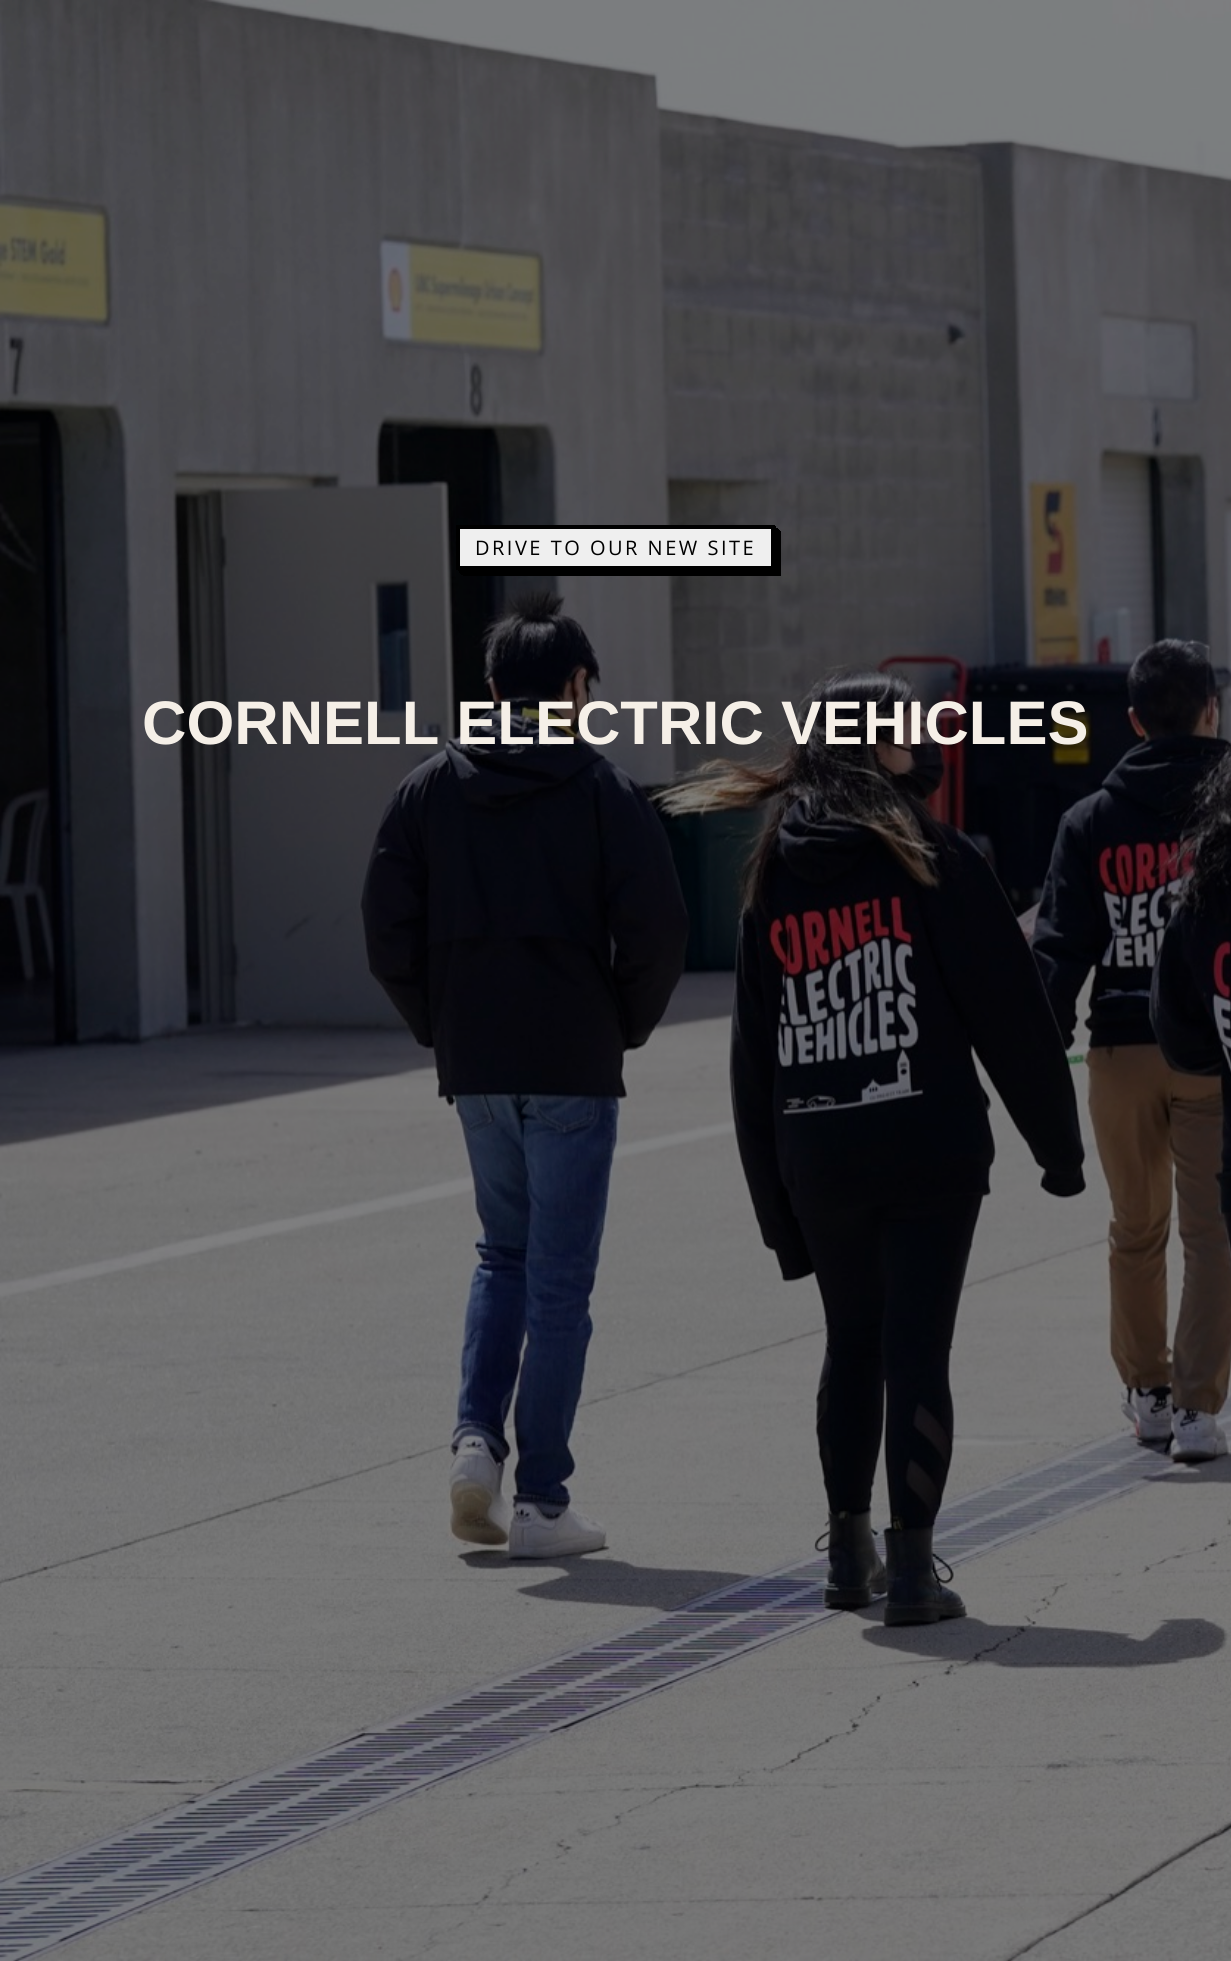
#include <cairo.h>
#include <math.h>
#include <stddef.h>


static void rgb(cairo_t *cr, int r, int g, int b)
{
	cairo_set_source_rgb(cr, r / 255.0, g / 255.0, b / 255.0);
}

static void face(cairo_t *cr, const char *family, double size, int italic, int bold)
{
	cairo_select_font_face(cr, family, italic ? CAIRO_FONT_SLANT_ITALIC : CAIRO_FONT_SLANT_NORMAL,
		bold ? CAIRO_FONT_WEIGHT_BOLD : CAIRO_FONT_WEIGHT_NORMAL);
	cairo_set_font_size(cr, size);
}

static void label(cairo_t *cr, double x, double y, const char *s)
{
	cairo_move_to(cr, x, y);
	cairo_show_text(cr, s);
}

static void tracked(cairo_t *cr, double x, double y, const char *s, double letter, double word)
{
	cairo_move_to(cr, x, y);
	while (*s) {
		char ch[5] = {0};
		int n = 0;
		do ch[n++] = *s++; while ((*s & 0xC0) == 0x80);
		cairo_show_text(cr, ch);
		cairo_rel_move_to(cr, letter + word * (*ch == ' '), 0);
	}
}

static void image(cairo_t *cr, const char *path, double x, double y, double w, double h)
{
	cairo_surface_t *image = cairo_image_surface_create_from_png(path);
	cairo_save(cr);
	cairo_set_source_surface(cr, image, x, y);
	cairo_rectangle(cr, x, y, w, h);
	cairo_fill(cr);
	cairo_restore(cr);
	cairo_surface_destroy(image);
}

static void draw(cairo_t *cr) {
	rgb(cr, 255, 255, 255);
	cairo_paint(cr);
	image(cr, "image0.png", 0, 0, 1231, 1961);
	rgb(cr, 0, 0, 0);
	cairo_new_path(cr);
	cairo_move_to(cr, 463, 570);
	cairo_line_to(cr, 463, 576);
	cairo_line_to(cr, 781, 576);
	cairo_line_to(cr, 781, 531);
	cairo_line_to(cr, 775, 531);
	cairo_line_to(cr, 775, 570);
	cairo_close_path(cr);
	cairo_fill(cr);
	cairo_new_path(cr);
	cairo_move_to(cr, 461, 570);
	cairo_line_to(cr, 461, 575);
	cairo_line_to(cr, 780, 575);
	cairo_line_to(cr, 780, 530);
	cairo_line_to(cr, 775, 530);
	cairo_line_to(cr, 775, 570);
	cairo_close_path(cr);
	cairo_fill(cr);
	cairo_new_path(cr);
	cairo_move_to(cr, 460, 570);
	cairo_line_to(cr, 460, 574);
	cairo_line_to(cr, 779, 574);
	cairo_line_to(cr, 779, 529);
	cairo_line_to(cr, 775, 529);
	cairo_line_to(cr, 775, 570);
	cairo_close_path(cr);
	cairo_fill(cr);
	cairo_new_path(cr);
	cairo_move_to(cr, 459, 570);
	cairo_line_to(cr, 459, 573);
	cairo_line_to(cr, 778, 573);
	cairo_line_to(cr, 778, 528);
	cairo_line_to(cr, 775, 528);
	cairo_line_to(cr, 775, 570);
	cairo_close_path(cr);
	cairo_fill(cr);
	cairo_new_path(cr);
	cairo_move_to(cr, 458, 570);
	cairo_line_to(cr, 458, 571);
	cairo_line_to(cr, 776, 571);
	cairo_line_to(cr, 776, 526);
	cairo_line_to(cr, 775, 526);
	cairo_line_to(cr, 775, 570);
	cairo_close_path(cr);
	cairo_fill(cr);
	rgb(cr, 239, 239, 239);
	cairo_rectangle(cr, 458, 527, 315, 41);
	cairo_fill_preserve(cr);
	rgb(cr, 0, 0, 0);
	cairo_set_line_width(cr, 4);
	cairo_stroke(cr);
	face(cr, "Open Sans", 20, 0, 0);
	tracked(cr, 475, 555, "DRIVE TO OUR NEW SITE", 2.5, 0);
	face(cr, "Liberation Sans", 61.5, 0, 1);
	rgb(cr, 245, 239, 231);
	label(cr, 142, 744, "CORNELL ELECTRIC VEHICLES");
}

int main(void) {
	cairo_surface_t *surface = cairo_image_surface_create(CAIRO_FORMAT_RGB24, 1231, 1961);
	cairo_t *cr = cairo_create(surface);
	cairo_font_options_t *options = cairo_font_options_create();
	cairo_font_options_set_hint_metrics(options, CAIRO_HINT_METRICS_OFF);
	cairo_font_options_set_hint_style(options, CAIRO_HINT_STYLE_NONE);
	cairo_set_font_options(cr, options);
	cairo_set_miter_limit(cr, 4);
	draw(cr);
	cairo_surface_write_to_png(surface, "render.png");
	cairo_font_options_destroy(options);
	cairo_destroy(cr);
	cairo_surface_destroy(surface);
	return 0;
}
